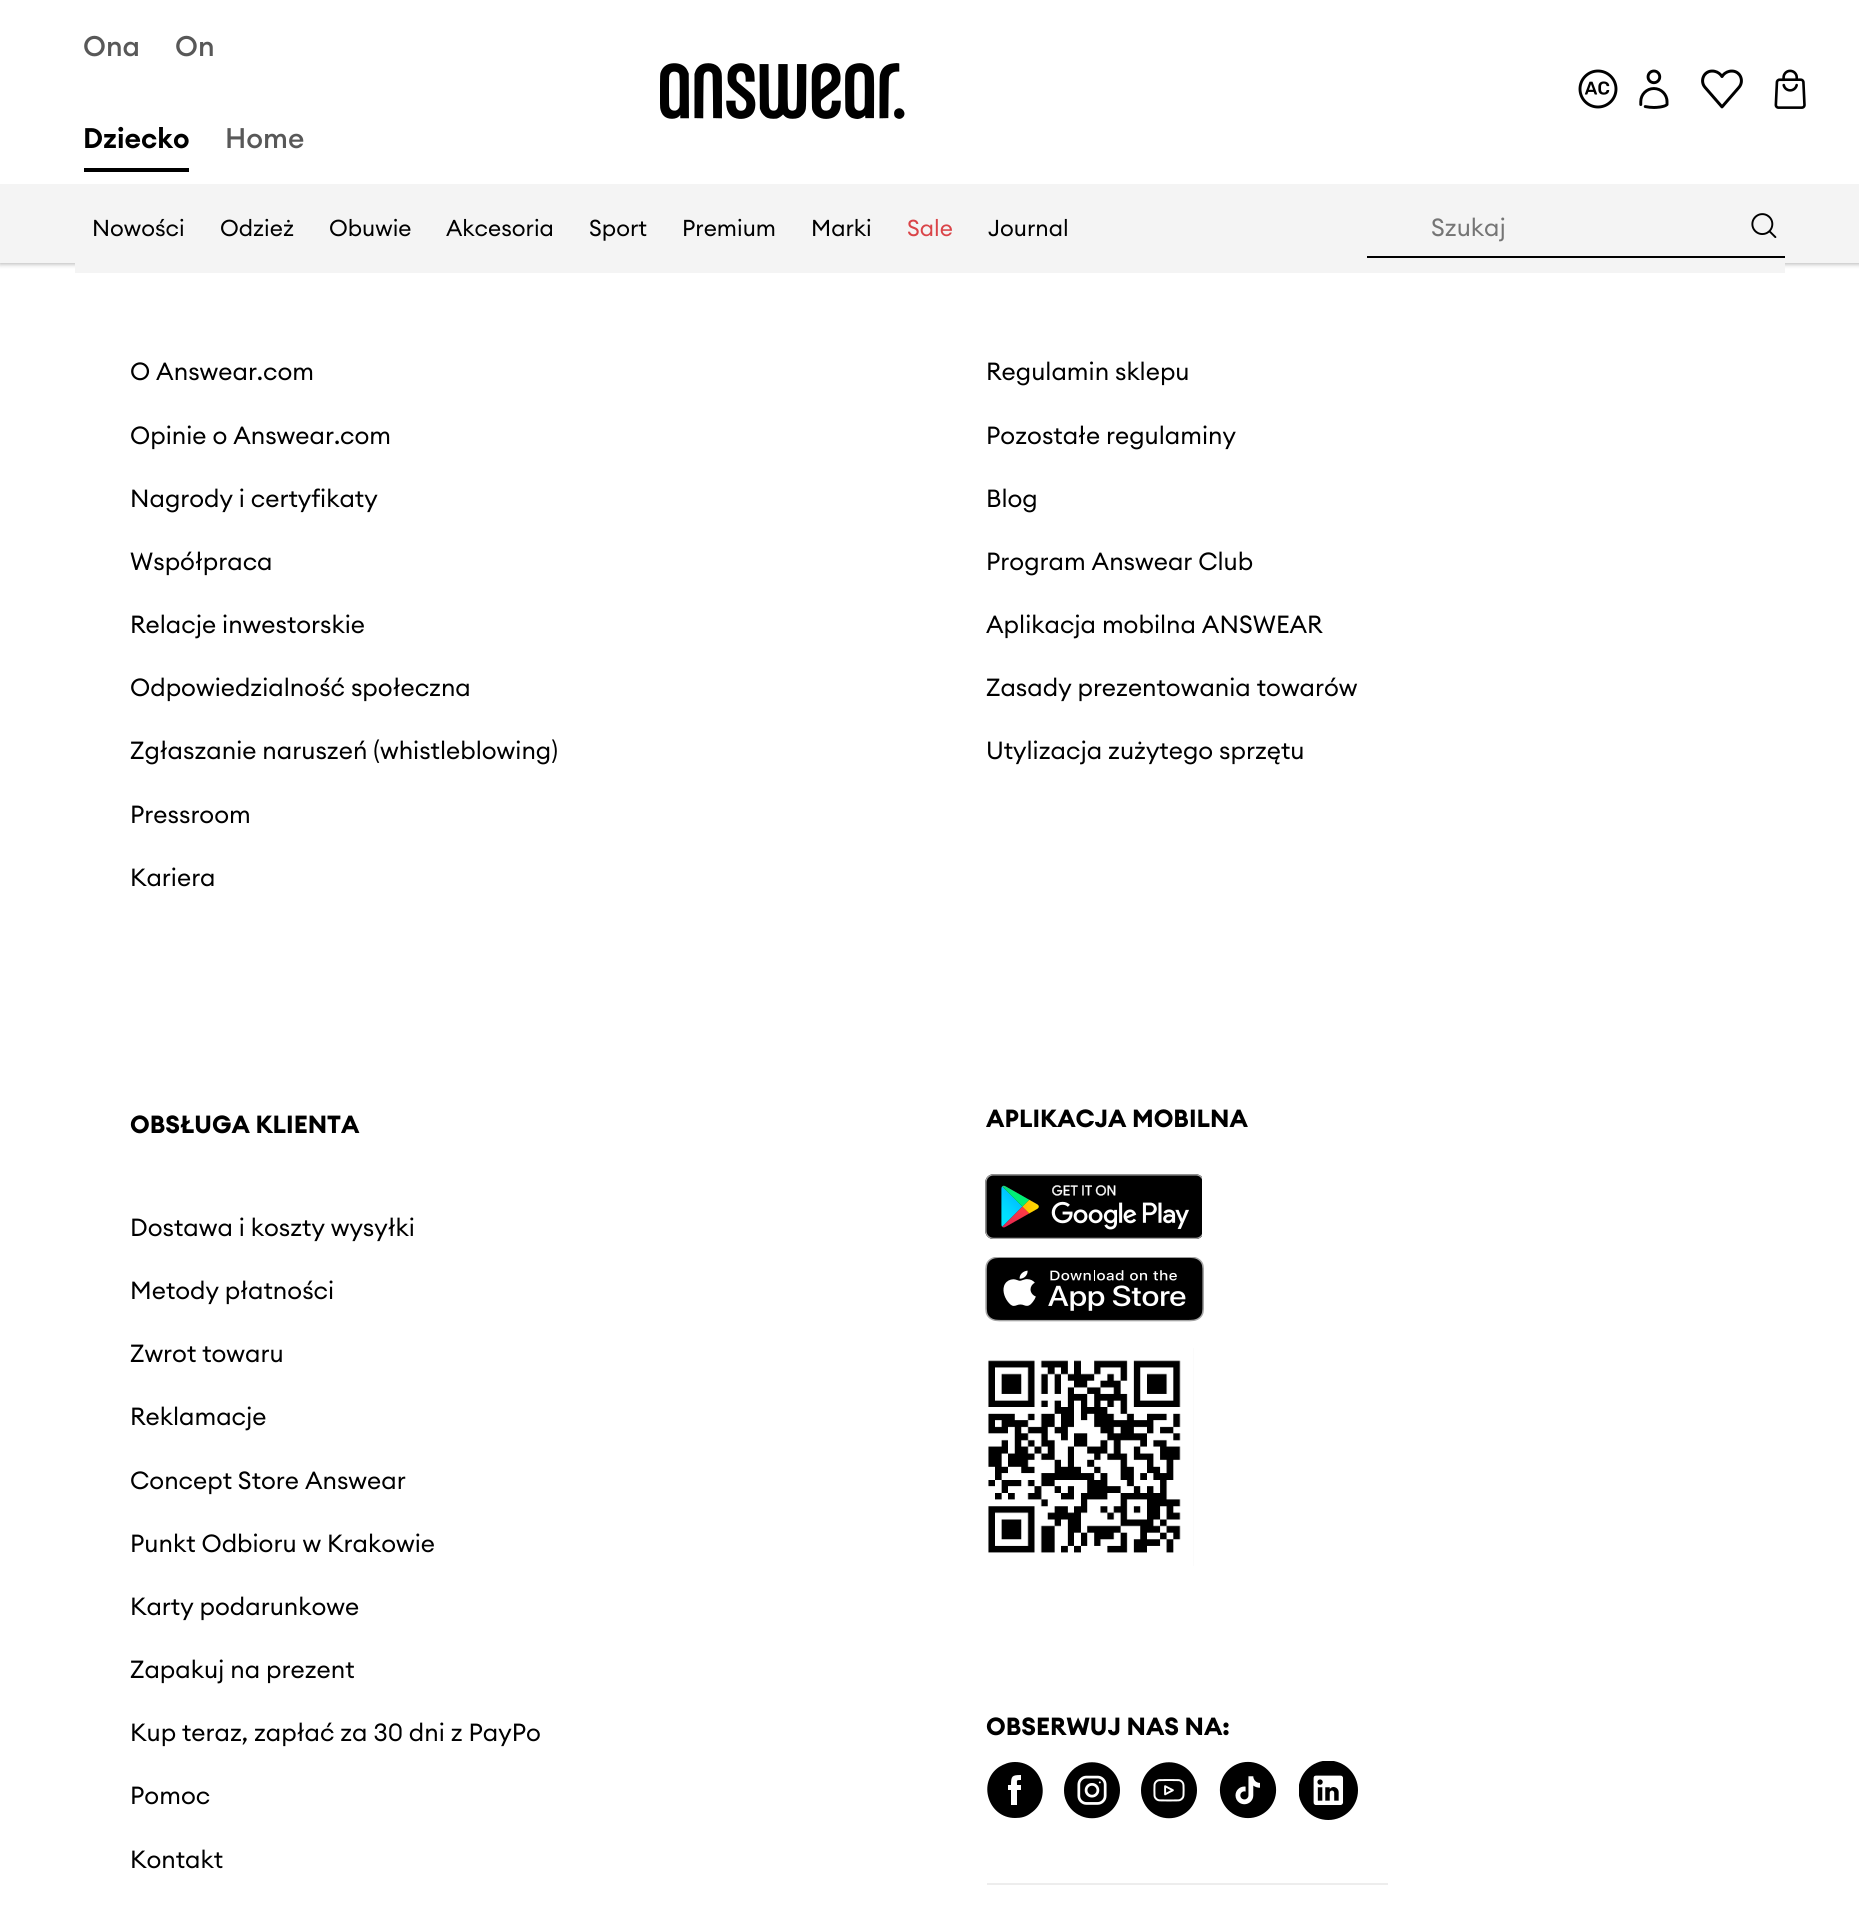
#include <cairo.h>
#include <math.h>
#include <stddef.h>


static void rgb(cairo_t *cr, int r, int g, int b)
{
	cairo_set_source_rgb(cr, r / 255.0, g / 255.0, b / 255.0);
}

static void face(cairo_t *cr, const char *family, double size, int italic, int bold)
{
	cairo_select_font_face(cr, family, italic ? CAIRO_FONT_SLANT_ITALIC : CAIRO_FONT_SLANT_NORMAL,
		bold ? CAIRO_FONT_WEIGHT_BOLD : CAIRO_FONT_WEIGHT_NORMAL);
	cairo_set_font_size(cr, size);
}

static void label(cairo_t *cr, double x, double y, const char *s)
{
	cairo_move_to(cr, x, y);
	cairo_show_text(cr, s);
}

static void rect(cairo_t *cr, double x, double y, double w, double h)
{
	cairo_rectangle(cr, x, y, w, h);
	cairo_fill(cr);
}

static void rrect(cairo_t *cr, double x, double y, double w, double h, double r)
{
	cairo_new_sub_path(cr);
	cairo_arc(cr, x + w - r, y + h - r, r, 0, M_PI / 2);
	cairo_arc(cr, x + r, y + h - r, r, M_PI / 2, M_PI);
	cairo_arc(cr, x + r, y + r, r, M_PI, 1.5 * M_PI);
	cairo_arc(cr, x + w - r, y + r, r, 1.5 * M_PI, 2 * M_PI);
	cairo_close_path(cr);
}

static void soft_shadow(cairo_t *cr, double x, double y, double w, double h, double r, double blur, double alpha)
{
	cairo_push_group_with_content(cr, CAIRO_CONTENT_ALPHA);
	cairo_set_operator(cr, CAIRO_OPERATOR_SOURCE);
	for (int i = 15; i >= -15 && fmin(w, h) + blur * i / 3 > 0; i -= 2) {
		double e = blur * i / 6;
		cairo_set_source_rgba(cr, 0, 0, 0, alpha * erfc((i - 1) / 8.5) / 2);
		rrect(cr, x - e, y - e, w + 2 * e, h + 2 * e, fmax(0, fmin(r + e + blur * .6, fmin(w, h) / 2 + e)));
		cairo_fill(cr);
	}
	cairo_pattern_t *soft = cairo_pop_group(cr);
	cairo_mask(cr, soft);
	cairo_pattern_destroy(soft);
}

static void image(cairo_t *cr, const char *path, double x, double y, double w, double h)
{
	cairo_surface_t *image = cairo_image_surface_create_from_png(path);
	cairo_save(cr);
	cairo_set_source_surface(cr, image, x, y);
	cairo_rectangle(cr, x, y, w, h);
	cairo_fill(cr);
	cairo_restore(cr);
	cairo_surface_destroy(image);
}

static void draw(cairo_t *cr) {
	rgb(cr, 255, 255, 255);
	cairo_paint(cr);
	rgb(cr, 0, 0, 0);
	soft_shadow(cr, 0, 2, 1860, 262, 0, 2.5, 0.3);
	rgb(cr, 255, 255, 255);
	rect(cr, 0, 0, 1859, 184);
	face(cr, "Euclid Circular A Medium", 28, 0, 0);
	rgb(cr, 88, 88, 88);
	label(cr, 83, 56, "Ona");
	label(cr, 175, 56, "On");
	face(cr, "Euclid Circular A SemiBold", 28, 0, 0);
	rgb(cr, 0, 0, 0);
	label(cr, 83, 148, "Dziecko");
	rect(cr, 84, 168, 105, 4);
	face(cr, "Euclid Circular A Medium", 28, 0, 0);
	rgb(cr, 88, 88, 88);
	label(cr, 225, 148, "Home");
	image(cr, "image0.png", 660, 63, 245, 56);
	image(cr, "image1.png", 1578, 69, 40, 40);
	image(cr, "image2.png", 1639, 69, 30, 40);
	image(cr, "image3.png", 1701, 69, 42, 40);
	image(cr, "image4.png", 1774, 69, 32, 40);
	rgb(cr, 244, 244, 244);
	rect(cr, 0, 184, 1859, 79);
	rect(cr, 75, 263, 1710, 10);
	face(cr, "Euclid Circular A", 22.75, 0, 0);
	rgb(cr, 0, 0, 0);
	label(cr, 92, 236, "Nowości");
	label(cr, 220, 236, "Odzież");
	label(cr, 329, 236, "Obuwie");
	label(cr, 446, 236, "Akcesoria");
	label(cr, 589, 236, "Sport");
	label(cr, 682, 236, "Premium");
	label(cr, 811, 236, "Marki");
	rgb(cr, 218, 68, 72);
	label(cr, 907, 236, "Sale");
	rgb(cr, 0, 0, 0);
	label(cr, 988, 236, "Journal");
	rect(cr, 1367, 256, 418, 2);
	face(cr, "Euclid Circular A", 24.5, 0, 0);
	rgb(cr, 117, 117, 117);
	label(cr, 1431, 236, "Szukaj");
	image(cr, "image5.png", 1751, 213, 26, 25);
	rgb(cr, 0, 0, 0);
	label(cr, 130, 380, "O Answear.com");
	label(cr, 130, 444, "Opinie o Answear.com");
	label(cr, 130, 507, "Nagrody i certyfikaty");
	label(cr, 130, 570, "Współpraca");
	label(cr, 130, 633, "Relacje inwestorskie");
	label(cr, 130, 696, "Odpowiedzialność społeczna");
	label(cr, 130, 759, "Zgłaszanie naruszeń (whistleblowing)");
	label(cr, 130, 823, "Pressroom");
	label(cr, 130, 886, "Kariera");
	label(cr, 986, 380, "Regulamin sklepu");
	label(cr, 986, 444, "Pozostałe regulaminy");
	label(cr, 986, 507, "Blog");
	label(cr, 986, 570, "Program Answear Club");
	label(cr, 986, 633, "Aplikacja mobilna ANSWEAR");
	label(cr, 986, 696, "Zasady prezentowania towarów");
	label(cr, 986, 759, "Utylizacja zużytego sprzętu");
	face(cr, "Euclid Circular A", 24.5, 0, 1);
	label(cr, 130, 1133, "OBSŁUGA KLIENTA");
	face(cr, "Euclid Circular A", 24.5, 0, 0);
	label(cr, 130, 1236, "Dostawa i koszty wysyłki");
	label(cr, 130, 1299, "Metody płatności");
	label(cr, 130, 1362, "Zwrot towaru");
	label(cr, 130, 1425, "Reklamacje");
	label(cr, 130, 1489, "Concept Store Answear");
	label(cr, 130, 1552, "Punkt Odbioru w Krakowie");
	label(cr, 130, 1615, "Karty podarunkowe");
	label(cr, 130, 1678, "Zapakuj na prezent");
	label(cr, 130, 1741, "Kup teraz, zapłać za 30 dni z PayPo");
	label(cr, 130, 1804, "Pomoc");
	label(cr, 130, 1868, "Kontakt");
	face(cr, "Euclid Circular A", 24.5, 0, 1);
	label(cr, 986, 1127, "APLIKACJA MOBILNA");
	image(cr, "image6.png", 985, 1174, 217, 65);
	image(cr, "image7.png", 985, 1257, 219, 65);
	rgb(cr, 247, 247, 247);
	rect(cr, 1193, 1348, 1, 218);
	image(cr, "image8.png", 975, 1348, 219, 218);
	rgb(cr, 0, 0, 0);
	label(cr, 986, 1735, "OBSERWUJ NAS NA:");
	cairo_new_path(cr);
	cairo_move_to(cr, 1015, 1762);
	cairo_curve_to(cr, 1009, 1762, 1004, 1764, 999, 1767);
	cairo_curve_to(cr, 977, 1782, 988, 1818, 1015, 1818);
	cairo_curve_to(cr, 1021, 1818, 1026, 1817, 1031, 1813);
	cairo_curve_to(cr, 1053, 1798, 1042, 1762, 1015, 1762);
	cairo_close_path(cr);
	cairo_move_to(cr, 1021, 1790);
	cairo_line_to(cr, 1017, 1790);
	cairo_line_to(cr, 1017, 1805);
	cairo_line_to(cr, 1011, 1805);
	cairo_line_to(cr, 1011, 1790);
	cairo_line_to(cr, 1008, 1790);
	cairo_line_to(cr, 1008, 1785);
	cairo_line_to(cr, 1011, 1785);
	cairo_curve_to(cr, 1011, 1776, 1012, 1775, 1021, 1775);
	cairo_line_to(cr, 1021, 1780);
	cairo_curve_to(cr, 1016, 1780, 1017, 1780, 1017, 1785);
	cairo_line_to(cr, 1021, 1785);
	cairo_close_path(cr);
	cairo_fill(cr);
	image(cr, "image9.png", 1064, 1762, 56, 57);
	image(cr, "image10.png", 1141, 1762, 56, 57);
	image(cr, "image11.png", 1219, 1761, 58, 58);
	image(cr, "image12.png", 1299, 1761, 59, 59);
	rgb(cr, 237, 237, 237);
	rect(cr, 987, 1883, 401, 2);
}

int main(void) {
	cairo_surface_t *surface = cairo_image_surface_create(CAIRO_FORMAT_RGB24, 1859, 1931);
	cairo_t *cr = cairo_create(surface);
	cairo_font_options_t *options = cairo_font_options_create();
	cairo_font_options_set_hint_metrics(options, CAIRO_HINT_METRICS_OFF);
	cairo_font_options_set_hint_style(options, CAIRO_HINT_STYLE_NONE);
	cairo_set_font_options(cr, options);
	cairo_set_miter_limit(cr, 4);
	draw(cr);
	cairo_surface_write_to_png(surface, "render.png");
	cairo_font_options_destroy(options);
	cairo_destroy(cr);
	cairo_surface_destroy(surface);
	return 0;
}
